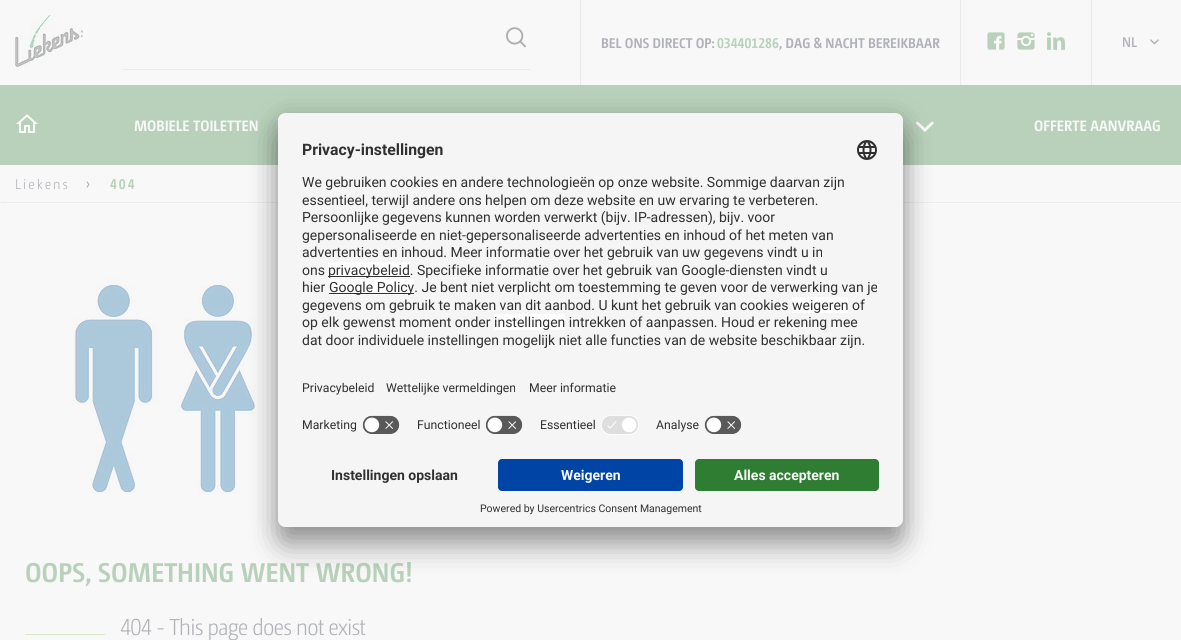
#include <cairo.h>
#include <math.h>
#include <stddef.h>


static void rgb(cairo_t *cr, int r, int g, int b)
{
	cairo_set_source_rgb(cr, r / 255.0, g / 255.0, b / 255.0);
}

static void face(cairo_t *cr, const char *family, double size, int italic, int bold)
{
	cairo_select_font_face(cr, family, italic ? CAIRO_FONT_SLANT_ITALIC : CAIRO_FONT_SLANT_NORMAL,
		bold ? CAIRO_FONT_WEIGHT_BOLD : CAIRO_FONT_WEIGHT_NORMAL);
	cairo_set_font_size(cr, size);
}

static void label(cairo_t *cr, double x, double y, const char *s)
{
	cairo_move_to(cr, x, y);
	cairo_show_text(cr, s);
}

static void tracked(cairo_t *cr, double x, double y, const char *s, double letter, double word)
{
	cairo_move_to(cr, x, y);
	while (*s) {
		char ch[5] = {0};
		int n = 0;
		do ch[n++] = *s++; while ((*s & 0xC0) == 0x80);
		cairo_show_text(cr, ch);
		cairo_rel_move_to(cr, letter + word * (*ch == ' '), 0);
	}
}

static void rect(cairo_t *cr, double x, double y, double w, double h)
{
	cairo_rectangle(cr, x, y, w, h);
	cairo_fill(cr);
}

static void rrect(cairo_t *cr, double x, double y, double w, double h, double r)
{
	cairo_new_sub_path(cr);
	cairo_arc(cr, x + w - r, y + h - r, r, 0, M_PI / 2);
	cairo_arc(cr, x + r, y + h - r, r, M_PI / 2, M_PI);
	cairo_arc(cr, x + r, y + r, r, M_PI, 1.5 * M_PI);
	cairo_arc(cr, x + w - r, y + r, r, 1.5 * M_PI, 2 * M_PI);
	cairo_close_path(cr);
}

static void soft_shadow(cairo_t *cr, double x, double y, double w, double h, double r, double blur, double alpha)
{
	cairo_push_group_with_content(cr, CAIRO_CONTENT_ALPHA);
	cairo_set_operator(cr, CAIRO_OPERATOR_SOURCE);
	for (int i = 15; i >= -15 && fmin(w, h) + blur * i / 3 > 0; i -= 2) {
		double e = blur * i / 6;
		cairo_set_source_rgba(cr, 0, 0, 0, alpha * erfc((i - 1) / 8.5) / 2);
		rrect(cr, x - e, y - e, w + 2 * e, h + 2 * e, fmax(0, fmin(r + e + blur * .6, fmin(w, h) / 2 + e)));
		cairo_fill(cr);
	}
	cairo_pattern_t *soft = cairo_pop_group(cr);
	cairo_mask(cr, soft);
	cairo_pattern_destroy(soft);
}

static void image(cairo_t *cr, const char *path, double x, double y, double w, double h)
{
	cairo_surface_t *image = cairo_image_surface_create_from_png(path);
	cairo_save(cr);
	cairo_set_source_surface(cr, image, x, y);
	cairo_rectangle(cr, x, y, w, h);
	cairo_fill(cr);
	cairo_restore(cr);
	cairo_surface_destroy(image);
}

static void draw(cairo_t *cr) {
	rgb(cr, 248, 248, 248);
	cairo_paint(cr);
	image(cr, "image0.png", 15, 15, 68, 52);
	image(cr, "image1.png", 506, 27, 20, 21);
	rgb(cr, 233, 236, 239);
	rect(cr, 123, 69, 407, 1);
	rect(cr, 960, 0, 1, 85);
	rect(cr, 580, 0, 1, 85);
	face(cr, "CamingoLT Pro", 14, 0, 1);
	rgb(cr, 176, 178, 184);
	label(cr, 601, 48, "BEL ONS DIRECT OP:");
	rgb(cr, 185, 209, 187);
	label(cr, 717, 48, "034401286");
	rgb(cr, 176, 178, 184);
	label(cr, 779, 48, ", DAG & NACHT BEREIKBAAR");
	image(cr, "image2.png", 987, 32, 18, 18);
	image(cr, "image3.png", 1017, 32, 18, 18);
	image(cr, "image4.png", 1047, 32, 18, 18);
	rgb(cr, 233, 236, 239);
	rect(cr, 1091, 0, 1, 85);
	face(cr, "CamingoLT Pro SemiBold", 14, 0, 0);
	rgb(cr, 176, 178, 184);
	label(cr, 1122, 47, "NL");
	image(cr, "image5.png", 1150, 39, 9, 6);
	rgb(cr, 185, 209, 187);
	rect(cr, 0, 85, 1181, 80);
	image(cr, "image6.png", 16, 114, 22, 19);
	face(cr, "CamingoLT Pro", 15, 0, 1);
	rgb(cr, 248, 248, 248);
	label(cr, 134, 131, "MOBIELE TOILETTEN");
	image(cr, "image7.png", 916, 121, 18, 11);
	label(cr, 1034, 131, "OFFERTE AANVRAAG");
	face(cr, "CamingoLT Pro Light", 14, 0, 0);
	rgb(cr, 176, 178, 184);
	tracked(cr, 15, 189, "Liekens", 2, 0);
	face(cr, "CamingoLT Pro", 14, 0, 0);
	label(cr, 86, 188, "›");
	face(cr, "CamingoLT Pro", 14, 0, 1);
	rgb(cr, 185, 209, 187);
	tracked(cr, 110, 189, "404", 2, 0);
	rgb(cr, 237, 237, 240);
	rect(cr, 1, 202, 1180, 1);
	image(cr, "image8.png", 71, 278, 184, 216);
	face(cr, "CamingoLT Pro", 27, 0, 1);
	rgb(cr, 185, 209, 187);
	label(cr, 25, 582, "OOPS, SOMETHING WENT WRONG!");
	rgb(cr, 217, 232, 203);
	rect(cr, 25, 634, 80, 1);
	face(cr, "CamingoLT Pro Light", 23, 0, 0);
	rgb(cr, 176, 178, 184);
	tracked(cr, 120, 635, "404 - This page does not exist", -0.9, 0);
	rgb(cr, 0, 0, 0);
	soft_shadow(cr, 278, 133, 625, 414, 8, 14, 0.3);
	soft_shadow(cr, 278, 118, 625, 414, 8, 13, 0.22);
	rgb(cr, 245, 245, 245);
	rrect(cr, 278, 113, 625, 414, 8);
	cairo_fill(cr);
	cairo_save(cr);
	rrect(cr, 278, 113, 625, 414, 8);
	cairo_clip(cr);
	cairo_new_path(cr);
	cairo_move_to(cr, 286, 113);
	cairo_line_to(cr, 895, 113);
	cairo_curve_to(cr, 899.5, 113, 903, 116.5, 903, 121);
	cairo_line_to(cr, 903, 451);
	cairo_line_to(cr, 278, 451);
	cairo_line_to(cr, 278, 121);
	cairo_curve_to(cr, 278, 116.5, 281.5, 113, 286, 113);
	cairo_close_path(cr);
	cairo_clip(cr);
	rect(cr, 278, 114, 625, 337);
	rect(cr, 278, 114, 625, 297);
	cairo_restore(cr);
	face(cr, "Roboto", 15.75, 0, 1);
	rgb(cr, 48, 48, 48);
	label(cr, 302, 155, "Privacy-instellingen");
	image(cr, "image9.png", 857, 140, 20, 20);
	face(cr, "Roboto", 14, 0, 0);
	label(cr, 302, 187, "We gebruiken cookies en andere technologieën op onze website. Sommige daarvan zijn");
	label(cr, 302, 205, "essentieel, terwijl andere ons helpen om deze website en uw ervaring te verbeteren.");
	label(cr, 302, 222, "Persoonlijke gegevens kunnen worden verwerkt (bijv. IP-adressen), bijv. voor");
	label(cr, 302, 240, "gepersonaliseerde en niet-gepersonaliseerde advertenties en inhoud of het meten van");
	label(cr, 302, 257, "advertenties en inhoud. Meer informatie over het gebruik van uw gegevens vindt u in");
	label(cr, 302, 275, "ons");
	rgb(cr, 255, 255, 255);
	rect(cr, 328, 262, 82, 16);
	rgb(cr, 48, 48, 48);
	rect(cr, 328, 276, 82, 1);
	label(cr, 328, 275, "privacybeleid. Specifieke informatie over het gebruik van Google-diensten vindt u");
	label(cr, 302, 292, "hier");
	rgb(cr, 255, 255, 255);
	rect(cr, 329, 279, 85, 16);
	rgb(cr, 48, 48, 48);
	rect(cr, 329, 293, 85, 1);
	label(cr, 329, 292, "Google Policy. Je bent niet verplicht om toestemming te geven voor de verwerking van je");
	label(cr, 302, 310, "gegevens om gebruik te maken van dit aanbod. U kunt het gebruik van cookies");
	rgb(cr, 255, 255, 255);
	rect(cr, 792, 297, 56, 16);
	rgb(cr, 48, 48, 48);
	label(cr, 792, 310, "weigeren of");
	label(cr, 302, 327, "op elk gewenst moment onder");
	rgb(cr, 255, 255, 255);
	rect(cr, 494, 314, 71, 16);
	rgb(cr, 48, 48, 48);
	label(cr, 494, 327, "instellingen intrekken of aanpassen. Houd er rekening mee");
	label(cr, 302, 345, "dat door individuele instellingen mogelijk niet alle functies van de website beschikbaar zijn.");
	face(cr, "Roboto", 12.25, 0, 0);
	label(cr, 302, 392, "Privacybeleid");
	label(cr, 386, 392, "Wettelijke vermeldingen");
	label(cr, 529, 392, "Meer informatie");
	label(cr, 302, 429, "Marketing");
	image(cr, "image10.png", 362, 415, 38, 19);
	label(cr, 417, 429, "Functioneel");
	image(cr, "image10.png", 485, 415, 38, 19);
	label(cr, 540, 429, "Essentieel");
	image(cr, "image11.png", 601, 415, 38, 20);
	label(cr, 656, 429, "Analyse");
	image(cr, "image10.png", 704, 415, 38, 19);
	rgb(cr, 245, 245, 245);
	cairo_new_path(cr);
	cairo_move_to(cr, 278, 451);
	cairo_line_to(cr, 903, 451);
	cairo_line_to(cr, 903, 519);
	cairo_curve_to(cr, 903, 523.5, 899.5, 527, 895, 527);
	cairo_line_to(cr, 286, 527);
	cairo_curve_to(cr, 281.5, 527, 278, 523.5, 278, 519);
	cairo_close_path(cr);
	cairo_fill(cr);
	face(cr, "Roboto", 14, 0, 1);
	rgb(cr, 48, 48, 48);
	label(cr, 331, 480, "Instellingen opslaan");
	rgb(cr, 0, 69, 165);
	rrect(cr, 498, 459, 185, 32, 4);
	cairo_fill(cr);
	rgb(cr, 248, 248, 248);
	label(cr, 561, 480, "Weigeren");
	rgb(cr, 46, 125, 50);
	rrect(cr, 695, 459, 184, 32, 4);
	cairo_fill(cr);
	rgb(cr, 248, 248, 248);
	label(cr, 734, 480, "Alles accepteren");
	face(cr, "Roboto", 10.5, 0, 0);
	rgb(cr, 48, 48, 48);
	label(cr, 480, 512, "Powered by Usercentrics Consent Management");
}

int main(void) {
	cairo_surface_t *surface = cairo_image_surface_create(CAIRO_FORMAT_RGB24, 1181, 640);
	cairo_t *cr = cairo_create(surface);
	cairo_font_options_t *options = cairo_font_options_create();
	cairo_font_options_set_hint_metrics(options, CAIRO_HINT_METRICS_OFF);
	cairo_font_options_set_hint_style(options, CAIRO_HINT_STYLE_NONE);
	cairo_set_font_options(cr, options);
	cairo_set_miter_limit(cr, 4);
	draw(cr);
	cairo_surface_write_to_png(surface, "render.png");
	cairo_font_options_destroy(options);
	cairo_destroy(cr);
	cairo_surface_destroy(surface);
	return 0;
}
